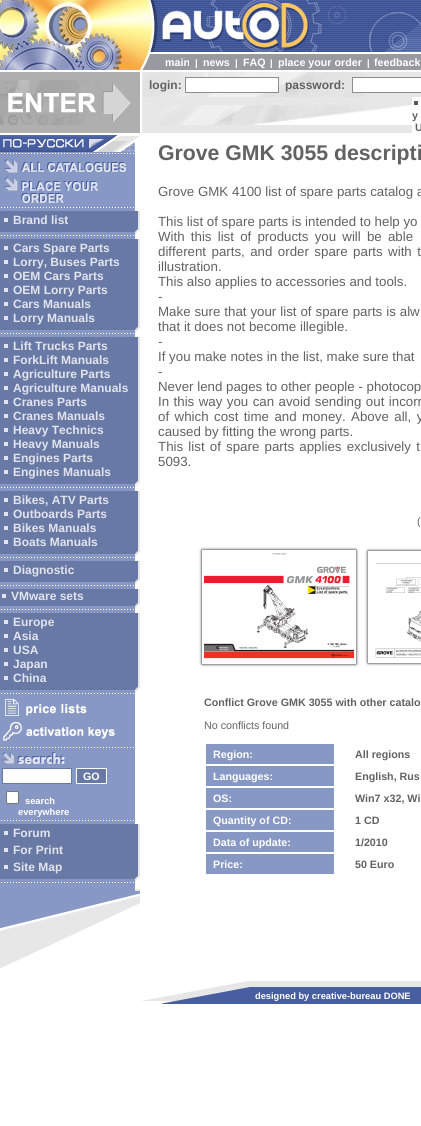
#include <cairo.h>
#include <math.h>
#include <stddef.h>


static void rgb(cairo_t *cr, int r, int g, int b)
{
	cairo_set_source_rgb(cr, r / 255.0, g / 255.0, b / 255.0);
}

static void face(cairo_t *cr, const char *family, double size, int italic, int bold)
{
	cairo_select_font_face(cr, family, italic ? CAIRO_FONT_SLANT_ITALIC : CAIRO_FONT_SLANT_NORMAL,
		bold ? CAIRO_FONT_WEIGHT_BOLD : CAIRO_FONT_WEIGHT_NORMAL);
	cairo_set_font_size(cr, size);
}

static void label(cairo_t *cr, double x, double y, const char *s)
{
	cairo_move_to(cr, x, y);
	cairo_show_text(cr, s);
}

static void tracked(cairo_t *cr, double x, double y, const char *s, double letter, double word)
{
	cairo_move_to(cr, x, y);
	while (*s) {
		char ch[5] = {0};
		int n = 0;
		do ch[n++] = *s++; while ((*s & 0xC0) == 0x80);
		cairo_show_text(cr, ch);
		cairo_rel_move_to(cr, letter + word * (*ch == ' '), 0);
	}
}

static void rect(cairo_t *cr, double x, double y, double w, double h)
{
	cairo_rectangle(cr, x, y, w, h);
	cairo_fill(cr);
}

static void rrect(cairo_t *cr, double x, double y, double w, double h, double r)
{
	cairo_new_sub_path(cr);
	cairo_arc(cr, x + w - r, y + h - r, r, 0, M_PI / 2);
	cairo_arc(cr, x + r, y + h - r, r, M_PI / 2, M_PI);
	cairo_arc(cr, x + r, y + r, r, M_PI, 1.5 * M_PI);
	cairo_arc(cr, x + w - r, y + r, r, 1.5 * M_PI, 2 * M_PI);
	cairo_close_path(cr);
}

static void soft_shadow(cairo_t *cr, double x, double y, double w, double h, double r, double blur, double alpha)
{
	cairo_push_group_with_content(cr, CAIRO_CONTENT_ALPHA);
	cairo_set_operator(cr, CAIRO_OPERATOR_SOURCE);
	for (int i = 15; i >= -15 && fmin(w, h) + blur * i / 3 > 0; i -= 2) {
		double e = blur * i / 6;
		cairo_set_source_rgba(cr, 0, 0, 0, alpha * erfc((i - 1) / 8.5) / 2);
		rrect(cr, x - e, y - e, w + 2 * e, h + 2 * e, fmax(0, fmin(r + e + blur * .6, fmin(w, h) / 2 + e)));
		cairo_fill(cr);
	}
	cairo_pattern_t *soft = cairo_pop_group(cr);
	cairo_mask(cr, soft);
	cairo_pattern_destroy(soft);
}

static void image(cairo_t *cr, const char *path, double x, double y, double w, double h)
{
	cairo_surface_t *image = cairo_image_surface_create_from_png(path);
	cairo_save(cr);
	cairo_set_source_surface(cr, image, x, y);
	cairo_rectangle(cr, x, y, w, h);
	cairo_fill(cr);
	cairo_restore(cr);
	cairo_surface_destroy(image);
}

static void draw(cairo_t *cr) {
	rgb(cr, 255, 255, 255);
	cairo_paint(cr);
	rgb(cr, 71, 94, 161);
	rect(cr, 350, 0, 71, 1);
	image(cr, "image0.png", 0, 0, 140, 70);
	image(cr, "image1.png", 140, 0, 35, 52);
	image(cr, "image2.png", 175, 0, 175, 52);
	image(cr, "image3.png", 350, 1, 71, 51);
	image(cr, "image4.png", 140, 52, 8, 2);
	rgb(cr, 153, 153, 160);
	rect(cr, 150, 54, 271, 16);
	image(cr, "image5.png", 140, 54, 10, 16);
	face(cr, "Liberation Sans", 10.7, 0, 1);
	rgb(cr, 255, 255, 255);
	label(cr, 165, 66, "main");
	face(cr, "Liberation Sans", 9.3, 0, 1);
	label(cr, 195, 66, "|");
	face(cr, "Liberation Sans", 10.7, 0, 1);
	label(cr, 203, 66, "news");
	face(cr, "Liberation Sans", 9.3, 0, 1);
	label(cr, 235, 66, "|");
	face(cr, "Liberation Sans", 10.7, 0, 1);
	label(cr, 243, 66, "FAQ");
	face(cr, "Liberation Sans", 9.3, 0, 1);
	label(cr, 270, 66, "|");
	face(cr, "Liberation Sans", 10.7, 0, 1);
	label(cr, 278, 66, "place your order");
	face(cr, "Liberation Sans", 9.3, 0, 1);
	label(cr, 367, 66, "|");
	face(cr, "Liberation Sans", 10.7, 0, 1);
	label(cr, 374, 66, "feedback");
	rgb(cr, 175, 175, 175);
	rect(cr, 0, 72, 140, 61);
	image(cr, "image6.png", 0, 80, 131, 45);
	rgb(cr, 231, 231, 231);
	rect(cr, 142, 72, 279, 25);
	image(cr, "image7.png", 143, 72, 222, 25);
	face(cr, "Liberation Sans", 12, 0, 1);
	rgb(cr, 98, 98, 98);
	label(cr, 149, 89, "login:");
	rgb(cr, 255, 255, 255);
	cairo_rectangle(cr, 185.5, 77.5, 93, 15);
	cairo_fill_preserve(cr);
	rgb(cr, 142, 141, 143);
	cairo_set_line_width(cr, 1);
	cairo_stroke(cr);
	rgb(cr, 98, 98, 98);
	label(cr, 285, 89, "password:");
	rgb(cr, 255, 255, 255);
	cairo_rectangle(cr, 352.5, 77.5, 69, 15);
	cairo_fill_preserve(cr);
	rgb(cr, 142, 141, 143);
	cairo_stroke(cr);
	rgb(cr, 231, 231, 231);
	rect(cr, 142, 97, 270, 36);
	image(cr, "image8.png", 160, 105, 252, 20);
	rgb(cr, 90, 84, 83);
	rect(cr, 414, 101, 4, 4);
	face(cr, "Liberation Sans", 10.7, 0, 1);
	rgb(cr, 98, 98, 98);
	label(cr, 412, 119, "y");
	label(cr, 415, 131, "U");
	image(cr, "image9.png", 0, 135, 139, 17);
	rgb(cr, 136, 152, 196);
	rect(cr, 0, 152, 135, 59);
	image(cr, "image10.png", 1, 153, 133, 1);
	image(cr, "image11.png", 4, 159, 122, 14);
	image(cr, "image12.png", 4, 177, 94, 26);
	image(cr, "image10.png", 1, 207, 133, 1);
	rgb(cr, 105, 121, 165);
	rect(cr, 0, 211, 138, 18);
	rgb(cr, 225, 228, 237);
	rect(cr, 4, 218, 4, 4);
	face(cr, "Liberation Sans", 12, 0, 1);
	label(cr, 13, 224, "Brand list");
	rgb(cr, 231, 231, 231);
	rect(cr, 138, 211, 2, 18);
	image(cr, "image13.png", 0, 229, 140, 5);
	rgb(cr, 136, 152, 196);
	rect(cr, 0, 234, 135, 5);
	image(cr, "image10.png", 1, 235, 133, 1);
	rgb(cr, 105, 121, 165);
	rect(cr, 0, 239, 138, 88);
	rgb(cr, 225, 228, 237);
	rect(cr, 4, 246, 4, 4);
	label(cr, 13, 252, "Cars Spare Parts");
	rect(cr, 4, 260, 4, 4);
	label(cr, 13, 266, "Lorry, Buses Parts");
	rect(cr, 4, 274, 4, 4);
	label(cr, 13, 280, "OEM Cars Parts");
	rect(cr, 4, 288, 4, 4);
	label(cr, 13, 294, "OEM Lorry Parts");
	rect(cr, 4, 302, 4, 4);
	label(cr, 13, 308, "Cars Manuals");
	rect(cr, 4, 316, 4, 4);
	label(cr, 13, 322, "Lorry Manuals");
	rgb(cr, 231, 231, 231);
	rect(cr, 138, 239, 2, 88);
	image(cr, "image13.png", 0, 327, 140, 5);
	rgb(cr, 136, 152, 196);
	rect(cr, 0, 332, 135, 5);
	image(cr, "image10.png", 1, 333, 133, 1);
	rgb(cr, 105, 121, 165);
	rect(cr, 0, 337, 138, 144);
	rgb(cr, 225, 228, 237);
	rect(cr, 4, 344, 4, 4);
	label(cr, 13, 350, "Lift Trucks Parts");
	rect(cr, 4, 358, 4, 4);
	label(cr, 13, 364, "ForkLift Manuals");
	rect(cr, 4, 372, 4, 4);
	label(cr, 13, 378, "Agriculture Parts");
	rect(cr, 4, 386, 4, 4);
	label(cr, 13, 392, "Agriculture Manuals");
	rect(cr, 4, 400, 4, 4);
	label(cr, 13, 406, "Cranes Parts");
	rect(cr, 4, 414, 4, 4);
	label(cr, 13, 420, "Cranes Manuals");
	rect(cr, 4, 428, 4, 4);
	label(cr, 13, 434, "Heavy Technics");
	rect(cr, 4, 442, 4, 4);
	label(cr, 13, 448, "Heavy Manuals");
	rect(cr, 4, 456, 4, 4);
	label(cr, 13, 462, "Engines Parts");
	rect(cr, 4, 470, 4, 4);
	label(cr, 13, 476, "Engines Manuals");
	rgb(cr, 231, 231, 231);
	rect(cr, 138, 337, 2, 144);
	image(cr, "image13.png", 0, 481, 140, 5);
	rgb(cr, 136, 152, 196);
	rect(cr, 0, 486, 135, 5);
	image(cr, "image10.png", 1, 487, 133, 1);
	rgb(cr, 105, 121, 165);
	rect(cr, 0, 491, 138, 60);
	rgb(cr, 225, 228, 237);
	rect(cr, 4, 498, 4, 4);
	label(cr, 13, 504, "Bikes, ATV Parts");
	rect(cr, 4, 512, 4, 4);
	label(cr, 13, 518, "Outboards Parts");
	rect(cr, 4, 526, 4, 4);
	label(cr, 13, 532, "Bikes Manuals");
	rect(cr, 4, 540, 4, 4);
	label(cr, 13, 546, "Boats Manuals");
	rgb(cr, 231, 231, 231);
	rect(cr, 138, 491, 2, 60);
	image(cr, "image13.png", 0, 551, 140, 5);
	rgb(cr, 136, 152, 196);
	rect(cr, 0, 556, 135, 5);
	image(cr, "image10.png", 1, 557, 133, 1);
	rgb(cr, 105, 121, 165);
	rect(cr, 0, 561, 138, 18);
	rgb(cr, 225, 228, 237);
	rect(cr, 4, 568, 4, 4);
	label(cr, 13, 574, "Diagnostic");
	rgb(cr, 231, 231, 231);
	rect(cr, 138, 561, 2, 18);
	image(cr, "image13.png", 0, 579, 140, 5);
	rgb(cr, 136, 152, 196);
	rect(cr, 0, 584, 135, 5);
	image(cr, "image10.png", 1, 585, 133, 1);
	rgb(cr, 105, 121, 165);
	rect(cr, 0, 589, 138, 14);
	rgb(cr, 225, 228, 237);
	rect(cr, 2, 594, 4, 4);
	label(cr, 11, 600, "VMware sets");
	rgb(cr, 231, 231, 231);
	rect(cr, 138, 589, 2, 14);
	image(cr, "image13.png", 0, 603, 140, 5);
	rgb(cr, 136, 152, 196);
	rect(cr, 0, 608, 135, 5);
	image(cr, "image10.png", 1, 609, 133, 1);
	rgb(cr, 105, 121, 165);
	rect(cr, 0, 613, 138, 74);
	rgb(cr, 225, 228, 237);
	rect(cr, 4, 620, 4, 4);
	label(cr, 13, 626, "Europe");
	rect(cr, 4, 634, 4, 4);
	label(cr, 13, 640, "Asia");
	rect(cr, 4, 648, 4, 4);
	label(cr, 13, 654, "USA");
	rect(cr, 4, 662, 4, 4);
	label(cr, 13, 668, "Japan");
	rect(cr, 4, 676, 4, 4);
	label(cr, 13, 682, "China");
	rgb(cr, 231, 231, 231);
	rect(cr, 138, 613, 2, 74);
	image(cr, "image13.png", 0, 687, 140, 5);
	rgb(cr, 136, 152, 196);
	rect(cr, 0, 692, 135, 132);
	image(cr, "image10.png", 1, 693, 133, 1);
	image(cr, "image14.png", 5, 699, 82, 17);
	image(cr, "image15.png", 3, 722, 112, 19);
	image(cr, "image10.png", 1, 747, 133, 1);
	image(cr, "image16.png", 2, 752, 63, 13);
	rgb(cr, 255, 255, 255);
	cairo_rectangle(cr, 2.5, 768.5, 69, 15);
	cairo_fill_preserve(cr);
	rgb(cr, 105, 121, 165);
	cairo_stroke(cr);
	cairo_rectangle(cr, 76.5, 768.5, 30, 15);
	cairo_fill_preserve(cr);
	rgb(cr, 255, 255, 255);
	cairo_stroke(cr);
	face(cr, "Liberation Sans", 10.7, 0, 1);
	label(cr, 83, 780, "GO");
	rrect(cr, 6.5, 791.5, 12, 12, 1.5);
	cairo_fill_preserve(cr);
	rgb(cr, 118, 118, 118);
	cairo_stroke(cr);
	face(cr, "Liberation Sans", 9.3, 0, 1);
	rgb(cr, 255, 255, 255);
	label(cr, 25, 804, "search");
	label(cr, 18, 815, "everywhere");
	image(cr, "image10.png", 1, 820, 133, 1);
	rgb(cr, 105, 121, 165);
	rect(cr, 0, 824, 138, 52);
	rgb(cr, 225, 228, 237);
	rect(cr, 4, 831, 4, 4);
	face(cr, "Liberation Sans", 12, 0, 1);
	label(cr, 13, 837, "Forum");
	rect(cr, 4, 848, 4, 4);
	label(cr, 13, 854, "For Print");
	rect(cr, 4, 865, 4, 4);
	label(cr, 13, 871, "Site Map");
	rgb(cr, 231, 231, 231);
	rect(cr, 138, 824, 2, 52);
	image(cr, "image13.png", 0, 876, 140, 5);
	rgb(cr, 136, 152, 196);
	rect(cr, 0, 881, 135, 5);
	image(cr, "image10.png", 1, 882, 133, 1);
	image(cr, "image17.png", 0, 886, 140, 83);
	face(cr, "Liberation Sans", 21.25, 0, 1);
	rgb(cr, 98, 98, 98);
	label(cr, 158, 160, "Grove GMK 3055 descripti");
	face(cr, "Liberation Sans", 13.3, 0, 0);
	label(cr, 158, 196, "Grove GMK 4100 list of spare parts catalog a");
	label(cr, 158, 226, "This list of spare parts is intended to help yo");
	tracked(cr, 158, 241, "With this list of products you will be able", 0, 2.5);
	tracked(cr, 158, 256, "different parts, and order spare parts with t", 0, 1.75);
	label(cr, 158, 271, "illustration.");
	label(cr, 158, 286, "This also applies to accessories and tools.");
	label(cr, 158, 301, "-");
	tracked(cr, 158, 316, "Make sure that your list of spare parts is alw", 0, 0.25);
	label(cr, 158, 331, "that it does not become illegible.");
	label(cr, 158, 346, "-");
	label(cr, 158, 361, "If you make notes in the list, make sure that");
	label(cr, 158, 376, "-");
	label(cr, 158, 391, "Never lend pages to other people - photocop");
	tracked(cr, 158, 406, "In this way you can avoid sending out incorr", 0, 0.75);
	tracked(cr, 158, 421, "of which cost time and money. Above all, y", 0, 1.75);
	label(cr, 158, 436, "caused by fitting the wrong parts.");
	tracked(cr, 158, 451, "This list of spare parts applies exclusively t", 0, 1.5);
	label(cr, 158, 466, "5093.");
	face(cr, "Liberation Sans", 10.7, 0, 0);
	label(cr, 417, 525, "(");
	cairo_save(cr);
	cairo_set_fill_rule(cr, CAIRO_FILL_RULE_EVEN_ODD);
	cairo_new_path(cr);
	cairo_move_to(cr, 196, 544);
	cairo_line_to(cr, 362, 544);
	cairo_line_to(cr, 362, 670);
	cairo_line_to(cr, 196, 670);
	cairo_close_path(cr);
	cairo_move_to(cr, 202, 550);
	cairo_line_to(cr, 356, 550);
	cairo_line_to(cr, 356, 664);
	cairo_line_to(cr, 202, 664);
	cairo_close_path(cr);
	cairo_clip(cr);
	rgb(cr, 0, 0, 0);
	soft_shadow(cr, 202, 550, 154, 114, 0, 1.5, 1);
	cairo_restore(cr);
	image(cr, "image18.png", 204, 553, 150, 106);
	cairo_save(cr);
	cairo_set_fill_rule(cr, CAIRO_FILL_RULE_EVEN_ODD);
	cairo_new_path(cr);
	cairo_move_to(cr, 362, 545);
	cairo_line_to(cr, 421, 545);
	cairo_line_to(cr, 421, 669);
	cairo_line_to(cr, 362, 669);
	cairo_close_path(cr);
	cairo_move_to(cr, 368, 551);
	cairo_line_to(cr, 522, 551);
	cairo_line_to(cr, 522, 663);
	cairo_line_to(cr, 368, 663);
	cairo_close_path(cr);
	cairo_clip(cr);
	rgb(cr, 0, 0, 0);
	soft_shadow(cr, 368, 551, 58, 112, 0, 1.5, 1);
	cairo_restore(cr);
	image(cr, "image19.png", 375, 563, 46, 95);
	face(cr, "Liberation Sans", 10.7, 0, 1);
	label(cr, 204, 706, "Conflict Grove GMK 3055 with other catalo");
	face(cr, "Liberation Sans", 10.7, 0, 0);
	label(cr, 204, 729, "No conflicts found");
	rgb(cr, 136, 152, 196);
	rect(cr, 206, 744, 128, 20);
	face(cr, "Liberation Sans", 10.7, 0, 1);
	rgb(cr, 255, 255, 255);
	label(cr, 213, 758, "Region:");
	rgb(cr, 98, 98, 98);
	label(cr, 355, 758, "All regions");
	rgb(cr, 136, 152, 196);
	rect(cr, 206, 766, 128, 20);
	rgb(cr, 255, 255, 255);
	label(cr, 213, 780, "Languages:");
	rgb(cr, 98, 98, 98);
	label(cr, 355, 780, "English, Rus");
	rgb(cr, 136, 152, 196);
	rect(cr, 206, 788, 128, 20);
	rgb(cr, 255, 255, 255);
	label(cr, 213, 802, "OS:");
	rgb(cr, 98, 98, 98);
	label(cr, 355, 802, "Win7 x32, Wi");
	rgb(cr, 136, 152, 196);
	rect(cr, 206, 810, 128, 20);
	rgb(cr, 255, 255, 255);
	label(cr, 213, 824, "Quantity of CD:");
	rgb(cr, 98, 98, 98);
	label(cr, 355, 824, "1 CD");
	rgb(cr, 136, 152, 196);
	rect(cr, 206, 832, 128, 20);
	rgb(cr, 255, 255, 255);
	label(cr, 213, 846, "Data of update:");
	rgb(cr, 98, 98, 98);
	label(cr, 355, 846, "1/2010");
	rgb(cr, 136, 152, 196);
	rect(cr, 206, 854, 128, 20);
	rgb(cr, 255, 255, 255);
	label(cr, 213, 868, "Price:");
	rgb(cr, 98, 98, 98);
	label(cr, 355, 868, "50 Euro");
	image(cr, "image20.png", 142, 981, 113, 23);
	rgb(cr, 231, 231, 231);
	rect(cr, 255, 981, 166, 6);
	rgb(cr, 71, 94, 161);
	rect(cr, 255, 987, 166, 17);
	face(cr, "Liberation Sans", 9.3, 0, 1);
	rgb(cr, 255, 255, 255);
	label(cr, 255, 999, "designed by creative-bureau DONE");
}

int main(void) {
	cairo_surface_t *surface = cairo_image_surface_create(CAIRO_FORMAT_RGB24, 421, 1126);
	cairo_t *cr = cairo_create(surface);
	cairo_font_options_t *options = cairo_font_options_create();
	cairo_font_options_set_hint_metrics(options, CAIRO_HINT_METRICS_OFF);
	cairo_font_options_set_hint_style(options, CAIRO_HINT_STYLE_NONE);
	cairo_set_font_options(cr, options);
	cairo_set_miter_limit(cr, 4);
	draw(cr);
	cairo_surface_write_to_png(surface, "render.png");
	cairo_font_options_destroy(options);
	cairo_destroy(cr);
	cairo_surface_destroy(surface);
	return 0;
}
